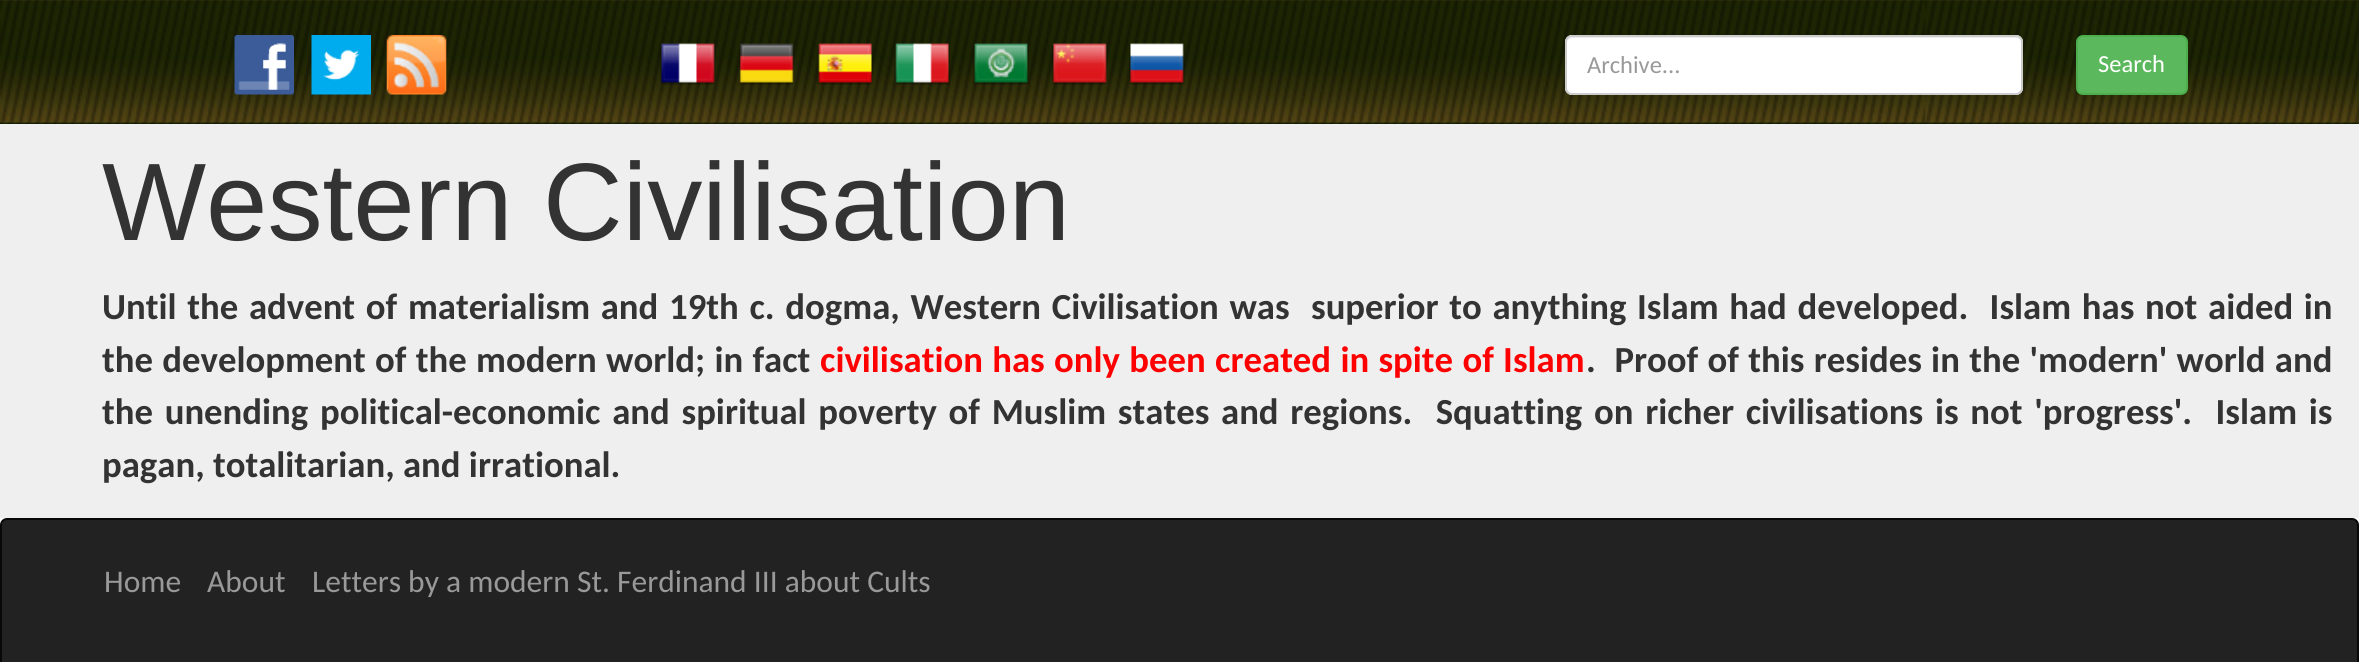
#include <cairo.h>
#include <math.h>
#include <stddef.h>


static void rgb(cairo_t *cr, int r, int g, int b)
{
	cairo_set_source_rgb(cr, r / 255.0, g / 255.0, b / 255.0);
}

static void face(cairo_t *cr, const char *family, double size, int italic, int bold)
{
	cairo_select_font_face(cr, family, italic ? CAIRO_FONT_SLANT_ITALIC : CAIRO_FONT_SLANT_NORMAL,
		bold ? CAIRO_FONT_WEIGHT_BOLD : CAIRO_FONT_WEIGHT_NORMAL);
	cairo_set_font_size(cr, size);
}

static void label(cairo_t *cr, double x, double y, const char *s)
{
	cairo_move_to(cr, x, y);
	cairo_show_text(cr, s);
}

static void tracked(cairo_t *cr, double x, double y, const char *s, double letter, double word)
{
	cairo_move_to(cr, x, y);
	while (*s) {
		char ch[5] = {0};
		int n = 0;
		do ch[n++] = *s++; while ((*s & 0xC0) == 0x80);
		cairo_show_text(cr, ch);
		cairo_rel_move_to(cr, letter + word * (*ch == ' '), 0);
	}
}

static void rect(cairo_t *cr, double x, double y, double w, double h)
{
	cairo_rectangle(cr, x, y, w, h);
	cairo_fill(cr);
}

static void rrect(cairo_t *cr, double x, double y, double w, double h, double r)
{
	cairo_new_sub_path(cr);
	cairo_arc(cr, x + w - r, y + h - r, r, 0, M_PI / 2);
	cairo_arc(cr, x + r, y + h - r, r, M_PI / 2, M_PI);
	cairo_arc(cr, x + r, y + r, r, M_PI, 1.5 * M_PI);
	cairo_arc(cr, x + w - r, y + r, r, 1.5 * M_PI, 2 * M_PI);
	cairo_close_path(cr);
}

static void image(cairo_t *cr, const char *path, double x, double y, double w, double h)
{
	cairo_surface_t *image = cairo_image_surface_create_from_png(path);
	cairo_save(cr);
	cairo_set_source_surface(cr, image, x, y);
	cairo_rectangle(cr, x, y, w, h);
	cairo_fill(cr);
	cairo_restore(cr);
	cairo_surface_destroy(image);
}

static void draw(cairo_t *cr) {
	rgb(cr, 255, 255, 255);
	cairo_paint(cr);
	image(cr, "image0.png", 0, 0, 2359, 124);
	image(cr, "image1.png", 234, 35, 60, 60);
	image(cr, "image2.png", 311, 35, 60, 60);
	image(cr, "image3.png", 386, 35, 61, 60);
	image(cr, "image4.png", 660, 43, 56, 42);
	image(cr, "image5.png", 739, 43, 55, 42);
	image(cr, "image6.png", 817, 43, 56, 42);
	image(cr, "image7.png", 894, 43, 56, 42);
	image(cr, "image8.png", 973, 43, 56, 42);
	image(cr, "image9.png", 1052, 43, 56, 42);
	image(cr, "image10.png", 1129, 43, 56, 42);
	rgb(cr, 255, 255, 255);
	rrect(cr, 1565, 35, 458, 60, 7);
	cairo_fill(cr);
	rgb(cr, 236, 236, 236);
	cairo_new_path(cr);
	cairo_move_to(cr, 1572, 38);
	cairo_line_to(cr, 2016, 38);
	cairo_curve_to(cr, 2019, 38, 2021, 41, 2021, 44);
	cairo_curve_to(cr, 2021, 41, 2020, 37, 2016, 37);
	cairo_line_to(cr, 1571, 37);
	cairo_curve_to(cr, 1567, 37, 1566, 41, 1566, 44);
	cairo_curve_to(cr, 1566, 41, 1569, 38, 1572, 38);
	cairo_close_path(cr);
	cairo_fill(cr);
	rrect(cr, 1566, 36, 456, 58, 6);
	rgb(cr, 204, 204, 204);
	cairo_stroke(cr);
	face(cr, "Carlito", 24.5, 0, 0);
	rgb(cr, 153, 153, 153);
	label(cr, 1587, 73, "Archive...");
	rgb(cr, 92, 184, 92);
	rrect(cr, 2077, 36, 110, 58, 6);
	cairo_fill_preserve(cr);
	rgb(cr, 76, 174, 76);
	cairo_stroke(cr);
	rgb(cr, 255, 255, 255);
	label(cr, 2098, 72, "Search");
	rgb(cr, 239, 239, 239);
	rect(cr, 0, 124, 2359, 394);
	face(cr, "Liberation Sans", 110.25, 0, 0);
	rgb(cr, 51, 51, 51);
	label(cr, 102, 240, "Western Civilisation");
	face(cr, "Carlito", 36.75, 0, 1);
	tracked(cr, 102, 319, "Until the advent of materialism and 19th c. dogma, Western Civilisation was  superior to anything Islam had developed.  Islam has not aided in", 0, 2.4);
	tracked(cr, 102, 372, "the development of the modern world; in fact", 0, 1);
	rgb(cr, 255, 0, 0);
	tracked(cr, 820, 372, "civilisation has only been created in spite of Islam", 0, 1);
	rgb(cr, 51, 51, 51);
	tracked(cr, 1586, 372, ".  Proof of this resides in the 'modern' world and", 0, 1);
	tracked(cr, 102, 424, "the unending political-economic and spiritual poverty of Muslim states and regions.  Squatting on richer civilisations is not 'progress'.  Islam is", 0, 3.4);
	label(cr, 102, 477, "pagan, totalitarian, and irrational.");
	rgb(cr, 34, 34, 34);
	rrect(cr, 1, 519, 2357, 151, 6);
	cairo_fill_preserve(cr);
	rgb(cr, 8, 8, 8);
	cairo_stroke(cr);
	face(cr, "Carlito", 31.5, 0, 0);
	rgb(cr, 153, 153, 153);
	label(cr, 104, 592, "Home");
	label(cr, 207, 592, "About");
	label(cr, 312, 592, "Letters by a modern St. Ferdinand III about Cults");
}

int main(void) {
	cairo_surface_t *surface = cairo_image_surface_create(CAIRO_FORMAT_RGB24, 2359, 662);
	cairo_t *cr = cairo_create(surface);
	cairo_font_options_t *options = cairo_font_options_create();
	cairo_font_options_set_hint_metrics(options, CAIRO_HINT_METRICS_OFF);
	cairo_font_options_set_hint_style(options, CAIRO_HINT_STYLE_NONE);
	cairo_set_font_options(cr, options);
	cairo_set_miter_limit(cr, 4);
	draw(cr);
	cairo_surface_write_to_png(surface, "render.png");
	cairo_font_options_destroy(options);
	cairo_destroy(cr);
	cairo_surface_destroy(surface);
	return 0;
}
